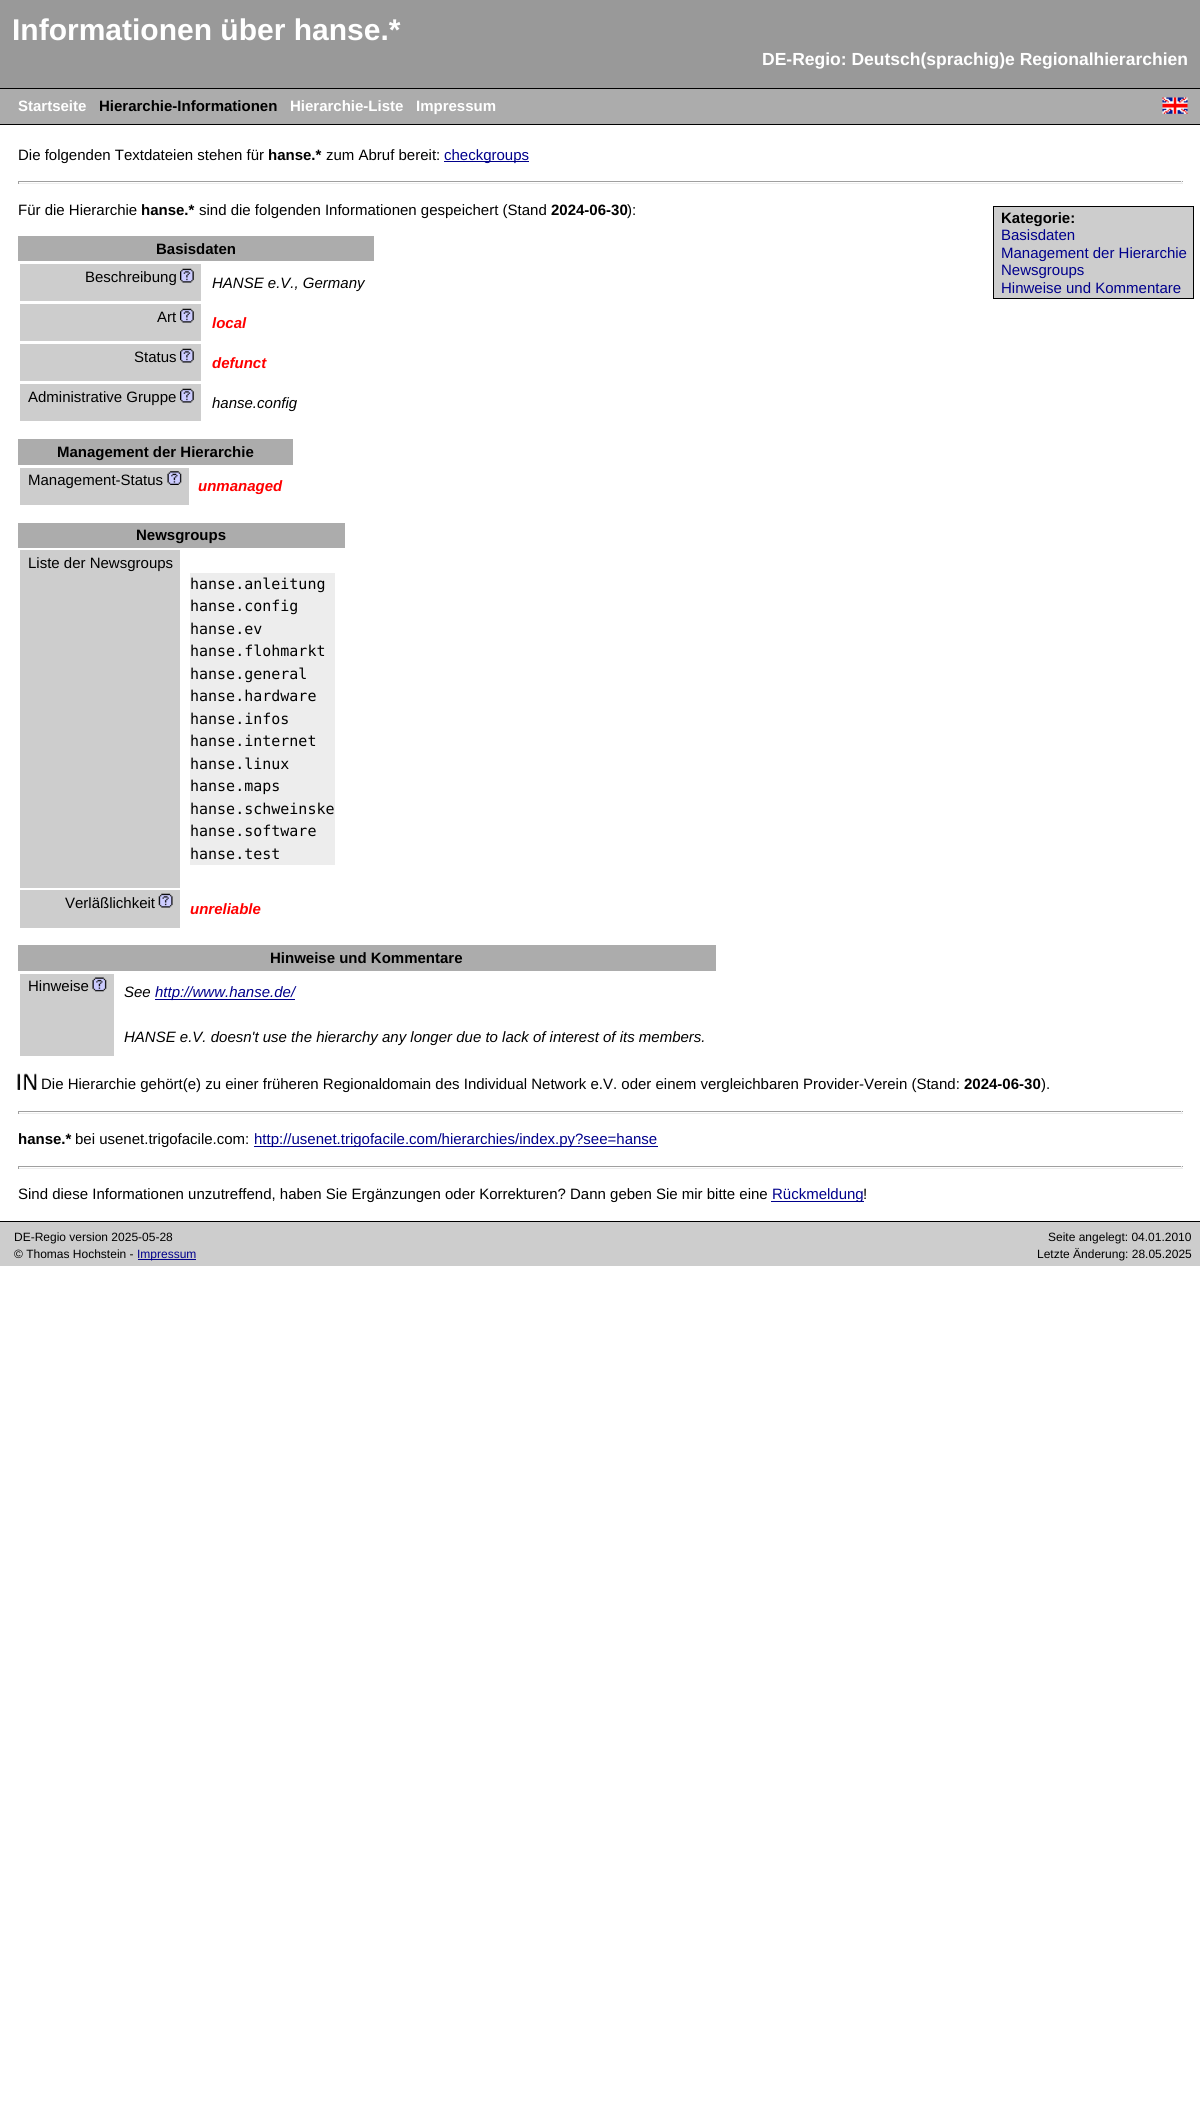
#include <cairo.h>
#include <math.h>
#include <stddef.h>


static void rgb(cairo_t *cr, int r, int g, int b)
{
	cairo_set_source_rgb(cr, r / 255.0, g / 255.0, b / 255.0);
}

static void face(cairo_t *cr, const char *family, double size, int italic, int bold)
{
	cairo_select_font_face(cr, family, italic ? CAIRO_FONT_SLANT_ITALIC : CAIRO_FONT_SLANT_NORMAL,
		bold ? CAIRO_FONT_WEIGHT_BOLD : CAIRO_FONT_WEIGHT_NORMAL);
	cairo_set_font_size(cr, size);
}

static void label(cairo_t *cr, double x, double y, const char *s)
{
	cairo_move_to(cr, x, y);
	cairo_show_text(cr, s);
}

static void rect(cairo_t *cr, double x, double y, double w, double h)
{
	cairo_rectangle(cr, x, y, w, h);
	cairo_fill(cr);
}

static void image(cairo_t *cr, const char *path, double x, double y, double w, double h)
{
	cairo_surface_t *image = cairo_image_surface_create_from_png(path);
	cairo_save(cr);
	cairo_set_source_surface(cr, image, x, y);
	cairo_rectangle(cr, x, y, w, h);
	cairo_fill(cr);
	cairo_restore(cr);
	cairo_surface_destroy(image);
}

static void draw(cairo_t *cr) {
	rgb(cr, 255, 255, 255);
	cairo_paint(cr);
	rgb(cr, 153, 153, 153);
	rect(cr, 0, 0, 1200, 88);
	face(cr, "Liberation Sans", 30, 0, 1);
	rgb(cr, 255, 255, 255);
	label(cr, 12, 40, "Informationen über hanse.*");
	face(cr, "Liberation Sans", 17.5, 0, 1);
	label(cr, 762, 65, "DE-Regio: Deutsch(sprachig)e Regionalhierarchien");
	rgb(cr, 172, 172, 172);
	rect(cr, 0, 89, 1200, 35);
	rgb(cr, 0, 0, 0);
	rect(cr, 0, 88, 1200, 1);
	rect(cr, 0, 124, 1200, 1);
	face(cr, "Liberation Sans", 15, 0, 1);
	rgb(cr, 255, 255, 255);
	label(cr, 18, 111, "Startseite");
	rgb(cr, 0, 0, 0);
	label(cr, 99, 111, "Hierarchie-Informationen");
	rgb(cr, 255, 255, 255);
	label(cr, 290, 111, "Hierarchie-Liste");
	label(cr, 416, 111, "Impressum");
	image(cr, "image0.png", 1162, 97, 26, 17);
	face(cr, "Liberation Sans", 15, 0, 0);
	rgb(cr, 0, 0, 0);
	label(cr, 18, 160, "Die folgenden Textdateien stehen für");
	face(cr, "Liberation Sans", 15, 0, 1);
	label(cr, 268, 160, "hanse.*");
	face(cr, "Liberation Sans", 15, 0, 0);
	label(cr, 326, 160, "zum Abruf bereit:");
	rgb(cr, 0, 0, 139);
	rect(cr, 444, 161, 85, 1);
	label(cr, 444, 160, "checkgroups");
	rgb(cr, 159, 159, 159);
	rect(cr, 18, 181, 1165, 1);
	rgb(cr, 238, 238, 238);
	rect(cr, 1181, 181, 1, 3);
	rect(cr, 18, 183, 1165, 1);
	rgb(cr, 159, 159, 159);
	rect(cr, 18, 181, 1, 3);
	rgb(cr, 0, 0, 0);
	label(cr, 18, 215, "Für die Hierarchie");
	face(cr, "Liberation Sans", 15, 0, 1);
	label(cr, 141, 215, "hanse.*");
	face(cr, "Liberation Sans", 15, 0, 0);
	label(cr, 199, 215, "sind die folgenden Informationen gespeichert (Stand");
	face(cr, "Liberation Sans", 15, 0, 1);
	label(cr, 551, 215, "2024-06-30");
	face(cr, "Liberation Sans", 15, 0, 0);
	label(cr, 627, 215, "):");
	rgb(cr, 205, 205, 205);
	cairo_rectangle(cr, 993.5, 206.5, 200, 92);
	cairo_fill_preserve(cr);
	rgb(cr, 0, 0, 0);
	cairo_set_line_width(cr, 1);
	cairo_stroke(cr);
	face(cr, "Liberation Sans", 15, 0, 1);
	label(cr, 1001, 223, "Kategorie:");
	face(cr, "Liberation Sans", 15, 0, 0);
	rgb(cr, 0, 0, 139);
	label(cr, 1001, 240, "Basisdaten");
	label(cr, 1001, 258, "Management der Hierarchie");
	label(cr, 1001, 275, "Newsgroups");
	label(cr, 1001, 293, "Hinweise und Kommentare");
	rgb(cr, 172, 172, 172);
	rect(cr, 18, 236, 356, 25);
	face(cr, "Liberation Sans", 15, 0, 1);
	rgb(cr, 0, 0, 0);
	label(cr, 156, 254, "Basisdaten");
	rgb(cr, 205, 205, 205);
	rect(cr, 20, 264, 181, 37);
	face(cr, "Liberation Sans", 15, 0, 0);
	rgb(cr, 0, 0, 0);
	label(cr, 85, 282, "Beschreibung");
	image(cr, "image1.png", 180, 268, 14, 15);
	face(cr, "Liberation Sans", 15, 1, 0);
	label(cr, 212, 288, "HANSE e.V., Germany");
	rgb(cr, 205, 205, 205);
	rect(cr, 20, 304, 181, 37);
	face(cr, "Liberation Sans", 15, 0, 0);
	rgb(cr, 0, 0, 0);
	label(cr, 157, 322, "Art");
	image(cr, "image1.png", 180, 308, 14, 15);
	face(cr, "Liberation Sans", 15, 1, 1);
	rgb(cr, 255, 0, 0);
	label(cr, 212, 328, "local");
	rgb(cr, 205, 205, 205);
	rect(cr, 20, 344, 181, 37);
	face(cr, "Liberation Sans", 15, 0, 0);
	rgb(cr, 0, 0, 0);
	label(cr, 134, 362, "Status");
	image(cr, "image1.png", 180, 348, 14, 15);
	face(cr, "Liberation Sans", 15, 1, 1);
	rgb(cr, 255, 0, 0);
	label(cr, 212, 368, "defunct");
	rgb(cr, 205, 205, 205);
	rect(cr, 20, 384, 181, 37);
	face(cr, "Liberation Sans", 15, 0, 0);
	rgb(cr, 0, 0, 0);
	label(cr, 28, 402, "Administrative Gruppe");
	image(cr, "image1.png", 180, 388, 14, 15);
	face(cr, "Liberation Sans", 15, 1, 0);
	label(cr, 212, 408, "hanse.config");
	rgb(cr, 172, 172, 172);
	rect(cr, 18, 439, 275, 26);
	face(cr, "Liberation Sans", 15, 0, 1);
	rgb(cr, 0, 0, 0);
	label(cr, 57, 457, "Management der Hierarchie");
	rgb(cr, 205, 205, 205);
	rect(cr, 20, 468, 169, 37);
	face(cr, "Liberation Sans", 15, 0, 0);
	rgb(cr, 0, 0, 0);
	label(cr, 28, 485, "Management-Status");
	image(cr, "image2.png", 167, 471, 15, 14);
	face(cr, "Liberation Sans", 15, 1, 1);
	rgb(cr, 255, 0, 0);
	label(cr, 198, 491, "unmanaged");
	rgb(cr, 172, 172, 172);
	rect(cr, 18, 523, 327, 25);
	face(cr, "Liberation Sans", 15, 0, 1);
	rgb(cr, 0, 0, 0);
	label(cr, 136, 540, "Newsgroups");
	rgb(cr, 205, 205, 205);
	rect(cr, 20, 550, 160, 338);
	face(cr, "Liberation Sans", 15, 0, 0);
	rgb(cr, 0, 0, 0);
	label(cr, 28, 568, "Liste der Newsgroups");
	rgb(cr, 237, 237, 237);
	rect(cr, 190, 573, 145, 292);
	face(cr, "DejaVu Sans Mono", 15, 0, 0);
	rgb(cr, 0, 0, 0);
	label(cr, 190, 589, "hanse.anleitung");
	label(cr, 190, 611, "hanse.config");
	label(cr, 190, 634, "hanse.ev");
	label(cr, 190, 656, "hanse.flohmarkt");
	label(cr, 190, 679, "hanse.general");
	label(cr, 190, 701, "hanse.hardware");
	label(cr, 190, 724, "hanse.infos");
	label(cr, 190, 746, "hanse.internet");
	label(cr, 190, 769, "hanse.linux");
	label(cr, 190, 791, "hanse.maps");
	label(cr, 190, 814, "hanse.schweinske");
	label(cr, 190, 836, "hanse.software");
	label(cr, 190, 859, "hanse.test");
	rgb(cr, 205, 205, 205);
	rect(cr, 20, 890, 160, 38);
	face(cr, "Liberation Sans", 15, 0, 0);
	rgb(cr, 0, 0, 0);
	label(cr, 65, 908, "Verläßlichkeit");
	image(cr, "image3.png", 158, 893, 15, 15);
	face(cr, "Liberation Sans", 15, 1, 1);
	rgb(cr, 255, 0, 0);
	label(cr, 190, 914, "unreliable");
	rgb(cr, 172, 172, 172);
	rect(cr, 18, 945, 698, 26);
	face(cr, "Liberation Sans", 15, 0, 1);
	rgb(cr, 0, 0, 0);
	label(cr, 270, 963, "Hinweise und Kommentare");
	rgb(cr, 205, 205, 205);
	rect(cr, 20, 974, 94, 82);
	face(cr, "Liberation Sans", 15, 0, 0);
	rgb(cr, 0, 0, 0);
	label(cr, 28, 991, "Hinweise");
	image(cr, "image4.png", 92, 977, 15, 15);
	face(cr, "Liberation Sans", 15, 1, 0);
	label(cr, 124, 997, "See");
	rgb(cr, 0, 0, 139);
	rect(cr, 155, 999, 140, 1);
	label(cr, 155, 997, "http://www.hanse.de/");
	rgb(cr, 0, 0, 0);
	label(cr, 124, 1042, "HANSE e.V. doesn't use the hierarchy any longer due to lack of interest of its members.");
	image(cr, "image5.png", 17, 1073, 20, 17);
	face(cr, "Liberation Sans", 15, 0, 0);
	label(cr, 41, 1089, "Die Hierarchie gehört(e) zu einer früheren Regionaldomain des Individual Network e.V. oder einem vergleichbaren Provider-Verein (Stand:");
	face(cr, "Liberation Sans", 15, 0, 1);
	label(cr, 964, 1089, "2024-06-30");
	face(cr, "Liberation Sans", 15, 0, 0);
	label(cr, 1041, 1089, ").");
	rgb(cr, 159, 159, 159);
	rect(cr, 18, 1111, 1165, 1);
	rgb(cr, 238, 238, 238);
	rect(cr, 1181, 1111, 1, 3);
	rect(cr, 18, 1113, 1165, 1);
	rgb(cr, 159, 159, 159);
	rect(cr, 18, 1111, 1, 3);
	face(cr, "Liberation Sans", 15, 0, 1);
	rgb(cr, 0, 0, 0);
	label(cr, 18, 1144, "hanse.*");
	face(cr, "Liberation Sans", 15, 0, 0);
	label(cr, 75, 1144, "bei usenet.trigofacile.com:");
	rgb(cr, 0, 0, 139);
	rect(cr, 254, 1146, 404, 1);
	label(cr, 254, 1144, "http://usenet.trigofacile.com/hierarchies/index.py?see=hanse");
	rgb(cr, 159, 159, 159);
	rect(cr, 18, 1166, 1165, 1);
	rgb(cr, 238, 238, 238);
	rect(cr, 1181, 1166, 1, 3);
	rect(cr, 18, 1168, 1165, 1);
	rgb(cr, 159, 159, 159);
	rect(cr, 18, 1166, 1, 3);
	rgb(cr, 0, 0, 0);
	label(cr, 18, 1199, "Sind diese Informationen unzutreffend, haben Sie Ergänzungen oder Korrekturen? Dann geben Sie mir bitte eine");
	rgb(cr, 0, 0, 139);
	rect(cr, 771, 1201, 93, 1);
	label(cr, 772, 1199, "Rückmeldung");
	rgb(cr, 0, 0, 0);
	label(cr, 863, 1199, "!");
	rgb(cr, 205, 205, 205);
	rect(cr, 0, 1222, 1200, 44);
	rgb(cr, 0, 0, 0);
	rect(cr, 0, 1221, 1200, 1);
	face(cr, "Liberation Sans", 12, 0, 0);
	label(cr, 14, 1241, "DE-Regio version 2025-05-28");
	label(cr, 1048, 1241, "Seite angelegt: 04.01.2010");
	label(cr, 14, 1258, "© Thomas Hochstein -");
	rgb(cr, 0, 0, 139);
	rect(cr, 138, 1259, 58, 1);
	label(cr, 137, 1258, "Impressum");
	rgb(cr, 0, 0, 0);
	label(cr, 1037, 1258, "Letzte Änderung: 28.05.2025");
}

int main(void) {
	cairo_surface_t *surface = cairo_image_surface_create(CAIRO_FORMAT_RGB24, 1200, 2110);
	cairo_t *cr = cairo_create(surface);
	cairo_font_options_t *options = cairo_font_options_create();
	cairo_font_options_set_hint_metrics(options, CAIRO_HINT_METRICS_OFF);
	cairo_font_options_set_hint_style(options, CAIRO_HINT_STYLE_NONE);
	cairo_set_font_options(cr, options);
	cairo_set_miter_limit(cr, 4);
	draw(cr);
	cairo_surface_write_to_png(surface, "render.png");
	cairo_font_options_destroy(options);
	cairo_destroy(cr);
	cairo_surface_destroy(surface);
	return 0;
}
